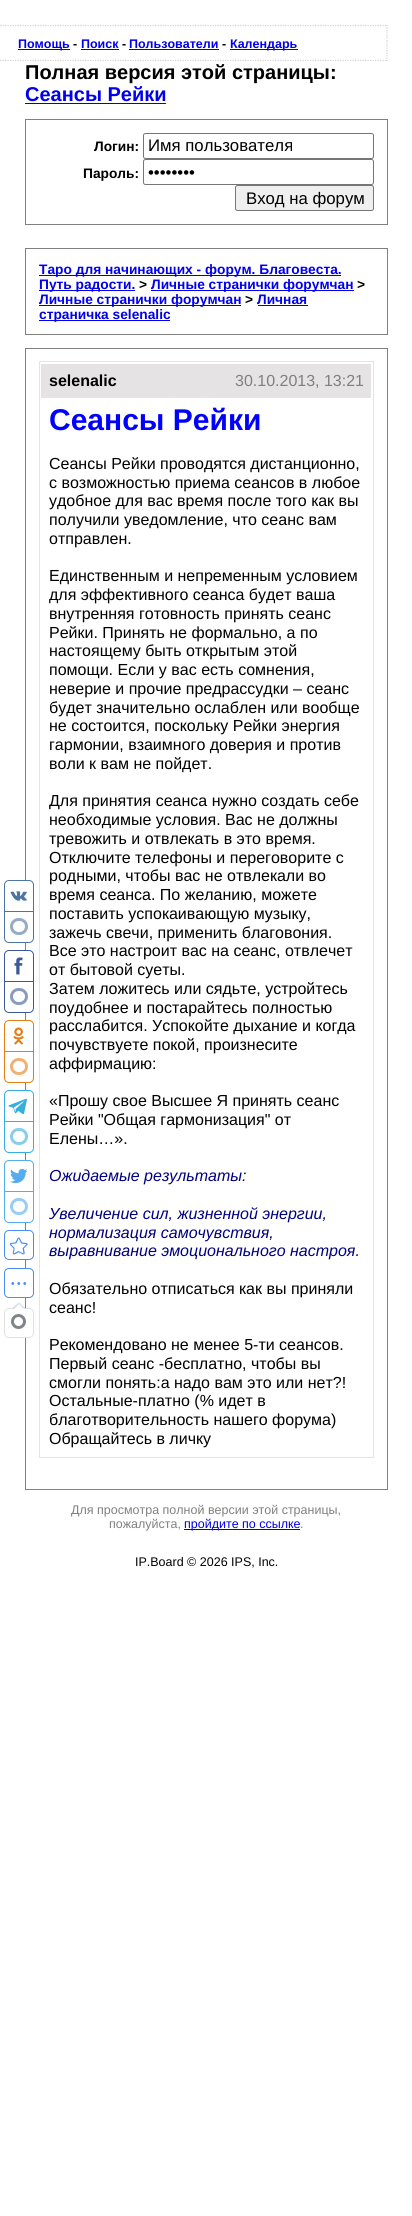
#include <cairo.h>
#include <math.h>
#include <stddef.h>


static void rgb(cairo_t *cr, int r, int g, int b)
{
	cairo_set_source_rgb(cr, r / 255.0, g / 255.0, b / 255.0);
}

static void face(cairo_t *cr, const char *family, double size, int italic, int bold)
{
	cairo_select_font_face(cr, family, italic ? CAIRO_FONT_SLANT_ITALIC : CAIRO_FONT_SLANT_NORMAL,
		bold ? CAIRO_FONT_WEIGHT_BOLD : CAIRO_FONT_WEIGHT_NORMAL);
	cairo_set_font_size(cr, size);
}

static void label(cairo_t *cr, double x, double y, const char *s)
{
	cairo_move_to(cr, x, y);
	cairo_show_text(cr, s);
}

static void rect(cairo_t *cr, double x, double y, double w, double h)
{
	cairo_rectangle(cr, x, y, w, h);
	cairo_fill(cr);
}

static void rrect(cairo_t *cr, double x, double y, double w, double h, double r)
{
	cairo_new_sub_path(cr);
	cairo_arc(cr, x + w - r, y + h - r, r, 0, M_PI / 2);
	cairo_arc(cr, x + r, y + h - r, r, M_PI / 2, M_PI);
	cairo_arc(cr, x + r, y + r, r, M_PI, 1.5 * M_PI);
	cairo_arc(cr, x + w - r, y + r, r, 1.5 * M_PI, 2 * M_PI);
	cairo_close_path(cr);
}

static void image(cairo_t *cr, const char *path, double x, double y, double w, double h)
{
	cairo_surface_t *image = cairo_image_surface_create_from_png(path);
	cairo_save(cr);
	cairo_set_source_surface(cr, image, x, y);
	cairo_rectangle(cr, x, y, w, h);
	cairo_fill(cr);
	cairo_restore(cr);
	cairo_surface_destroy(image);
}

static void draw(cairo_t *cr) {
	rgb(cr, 255, 255, 255);
	cairo_paint(cr);
	cairo_new_path(cr);
	cairo_move_to(cr, -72.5, 25.5);
	cairo_line_to(cr, 387.5, 25.5);
	rgb(cr, 211, 211, 211);
	cairo_set_line_width(cr, 1.2);
	cairo_set_dash(cr, (double[]){1.25, 1.25}, 2, 0);
	cairo_stroke(cr);
	cairo_new_path(cr);
	cairo_move_to(cr, 387, 25);
	cairo_line_to(cr, 387, 61);
	cairo_stroke(cr);
	cairo_new_path(cr);
	cairo_move_to(cr, -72.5, 60.5);
	cairo_line_to(cr, 387.5, 60.5);
	cairo_stroke(cr);
	rgb(cr, 0, 0, 238);
	rect(cr, 18, 49, 52, 1);
	face(cr, "Liberation Sans", 12.5, 0, 1);
	label(cr, 18, 48, "Помощь");
	rgb(cr, 0, 0, 0);
	label(cr, 73, 48, "-");
	rgb(cr, 0, 0, 238);
	label(cr, 81, 48, "Поиск");
	rect(cr, 81, 49, 38, 1);
	rgb(cr, 0, 0, 0);
	label(cr, 122, 48, "-");
	rgb(cr, 0, 0, 238);
	label(cr, 129, 48, "Пользователи");
	rect(cr, 129, 49, 90, 1);
	rgb(cr, 0, 0, 0);
	label(cr, 222, 48, "-");
	rgb(cr, 0, 0, 238);
	rect(cr, 230, 49, 68, 1);
	label(cr, 230, 48, "Календарь");
	face(cr, "Liberation Sans", 20, 0, 1);
	rgb(cr, 0, 0, 0);
	label(cr, 25, 79, "Полная версия этой страницы:");
	rgb(cr, 0, 0, 238);
	label(cr, 25, 101, "Сеансы Рейки");
	rect(cr, 25, 103, 141, 1);
	cairo_rectangle(cr, 25.5, 119.5, 362, 105);
	rgb(cr, 128, 128, 128);
	cairo_set_line_width(cr, 1);
	cairo_set_dash(cr, NULL, 0, 0);
	cairo_stroke(cr);
	face(cr, "Liberation Sans", 13.75, 0, 1);
	rgb(cr, 0, 0, 0);
	label(cr, 94, 151, "Логин:");
	rrect(cr, 143.5, 133.5, 230, 25, 2);
	rgb(cr, 118, 118, 118);
	cairo_stroke(cr);
	face(cr, "Liberation Sans", 16.75, 0, 0);
	rgb(cr, 0, 0, 0);
	label(cr, 148, 151, "Имя пользователя");
	face(cr, "Liberation Sans", 13.75, 0, 1);
	label(cr, 83, 178, "Пароль:");
	rrect(cr, 143.5, 159.5, 230, 25, 2);
	rgb(cr, 118, 118, 118);
	cairo_stroke(cr);
	face(cr, "Liberation Sans", 16.75, 0, 0);
	rgb(cr, 0, 0, 0);
	label(cr, 148, 178, "••••••••");
	rgb(cr, 239, 239, 239);
	rrect(cr, 235.5, 185.5, 138, 25, 2);
	cairo_fill_preserve(cr);
	rgb(cr, 118, 118, 118);
	cairo_stroke(cr);
	rgb(cr, 0, 0, 0);
	label(cr, 246, 204, "Вход на форум");
	cairo_rectangle(cr, 25.5, 248.5, 362, 86);
	rgb(cr, 128, 128, 128);
	cairo_stroke(cr);
	rgb(cr, 0, 0, 238);
	rect(cr, 39, 275, 302, 1);
	face(cr, "Liberation Sans", 13.75, 0, 1);
	label(cr, 39, 274, "Таро для начинающих - форум. Благовеста.");
	rect(cr, 39, 290, 96, 1);
	label(cr, 39, 289, "Путь радости.");
	rgb(cr, 0, 0, 0);
	label(cr, 139, 289, ">");
	rgb(cr, 0, 0, 238);
	rect(cr, 151, 290, 203, 1);
	label(cr, 151, 289, "Личные странички форумчан");
	rgb(cr, 0, 0, 0);
	label(cr, 357, 289, ">");
	rgb(cr, 0, 0, 238);
	rect(cr, 39, 305, 202, 1);
	label(cr, 39, 304, "Личные странички форумчан");
	rgb(cr, 0, 0, 0);
	label(cr, 245, 304, ">");
	rgb(cr, 0, 0, 238);
	label(cr, 257, 304, "Личная");
	rect(cr, 258, 305, 50, 1);
	rect(cr, 39, 320, 131, 1);
	label(cr, 39, 319, "страничка selenalic");
	cairo_rectangle(cr, 25.5, 348.5, 362, 1141);
	rgb(cr, 128, 128, 128);
	cairo_stroke(cr);
	cairo_rectangle(cr, 39.5, 361.5, 334, 1096);
	rgb(cr, 230, 227, 228);
	cairo_stroke(cr);
	rect(cr, 41, 364, 330, 34);
	face(cr, "Liberation Sans", 16, 0, 1);
	rgb(cr, 0, 0, 0);
	label(cr, 49, 386, "selenalic");
	face(cr, "Liberation Sans", 16, 0, 0);
	rgb(cr, 128, 128, 128);
	label(cr, 235, 386, "30.10.2013, 13:21");
	face(cr, "Liberation Sans", 30, 0, 1);
	rgb(cr, 0, 0, 255);
	label(cr, 49, 430, "Сеансы Рейки");
	face(cr, "Liberation Sans", 16, 0, 0);
	rgb(cr, 0, 0, 0);
	label(cr, 49, 469, "Сеансы Рейки проводятся дистанционно,");
	label(cr, 49, 488, "с возможностью приема сеансов в любое");
	label(cr, 49, 506, "удобное для вас время после того как вы");
	label(cr, 49, 525, "получили уведомление, что сеанс вам");
	label(cr, 49, 544, "отправлен.");
	label(cr, 49, 581, "Единственным и непременным условием");
	label(cr, 49, 600, "для эффективного сеанса будет ваша");
	label(cr, 49, 619, "внутренняя готовность принять сеанс");
	label(cr, 49, 638, "Рейки. Принять не формально, а по");
	label(cr, 49, 656, "настоящему быть открытым этой");
	label(cr, 49, 675, "помощи. Если у вас есть сомнения,");
	label(cr, 49, 694, "неверие и прочие предрассудки – сеанс");
	label(cr, 49, 713, "будет значительно ослаблен или вообще");
	label(cr, 49, 731, "не состоится, поскольку Рейки энергия");
	label(cr, 49, 750, "гармонии, взаимного доверия и против");
	label(cr, 49, 769, "воли к вам не пойдет.");
	label(cr, 49, 806, "Для принятия сеанса нужно создать себе");
	label(cr, 49, 825, "необходимые условия. Вас не должны");
	label(cr, 49, 844, "тревожить и отвлекать в это время.");
	label(cr, 49, 863, "Отключите телефоны и переговорите с");
	label(cr, 49, 881, "родными, чтобы вас не отвлекали во");
	label(cr, 49, 900, "время сеанса. По желанию, можете");
	label(cr, 49, 919, "поставить успокаивающую музыку,");
	label(cr, 49, 938, "зажечь свечи, применить благовония.");
	label(cr, 49, 956, "Все это настроит вас на сеанс, отвлечет");
	label(cr, 49, 975, "от бытовой суеты.");
	label(cr, 49, 994, "Затем ложитесь или сядьте, устройтесь");
	label(cr, 49, 1013, "поудобнее и постарайтесь полностью");
	label(cr, 49, 1031, "расслабится. Успокойте дыхание и когда");
	label(cr, 49, 1050, "почувствуете покой, произнесите");
	label(cr, 49, 1069, "аффирмацию:");
	label(cr, 49, 1106, "«Прошу свое Высшее Я принять сеанс");
	label(cr, 49, 1125, "Рейки \"Общая гармонизация\" от");
	label(cr, 49, 1144, "Елены…».");
	face(cr, "Liberation Sans", 16, 1, 0);
	rgb(cr, 0, 0, 128);
	label(cr, 49, 1181, "Ожидаемые результаты:");
	label(cr, 49, 1219, "Увеличение сил, жизненной энергии,");
	label(cr, 49, 1238, "нормализация самочувствия,");
	label(cr, 49, 1256, "выравнивание эмоционального настроя.");
	face(cr, "Liberation Sans", 16, 0, 0);
	rgb(cr, 0, 0, 0);
	label(cr, 49, 1294, "Обязательно отписаться как вы приняли");
	label(cr, 49, 1313, "сеанс!");
	label(cr, 49, 1350, "Рекомендовано не менее 5-ти сеансов.");
	label(cr, 49, 1369, "Первый сеанс -бесплатно, чтобы вы");
	label(cr, 49, 1388, "смогли понять:а надо вам это или нет?!");
	label(cr, 49, 1406, "Остальные-платно (% идет в");
	label(cr, 49, 1425, "благотворительность нашего форума)");
	label(cr, 49, 1444, "Обращайтесь в личку");
	face(cr, "Liberation Sans", 12.5, 0, 0);
	rgb(cr, 128, 128, 128);
	label(cr, 71, 1514, "Для просмотра полной версии этой страницы,");
	label(cr, 109, 1528, "пожалуйста,");
	rgb(cr, 0, 0, 238);
	rect(cr, 184, 1529, 116, 1);
	label(cr, 184, 1528, "пройдите по ссылке");
	rgb(cr, 128, 128, 128);
	label(cr, 300, 1528, ".");
	rgb(cr, 255, 255, 255);
	rrect(cr, 4.5, 880.5, 29, 62, 4.5);
	cairo_fill_preserve(cr);
	rgb(cr, 77, 117, 163);
	cairo_stroke(cr);
	image(cr, "image0.png", 10, 891, 17, 10);
	rect(cr, 5, 911, 28, 1);
	rrect(cr, 11.5, 919.5, 15, 14, 7);
	rgb(cr, 148, 172, 200);
	cairo_set_line_width(cr, 3);
	cairo_stroke(cr);
	rgb(cr, 255, 255, 255);
	rrect(cr, 4.5, 950.5, 29, 62, 4.5);
	cairo_fill_preserve(cr);
	rgb(cr, 59, 89, 152);
	cairo_set_line_width(cr, 1);
	cairo_stroke(cr);
	image(cr, "image1.png", 14, 957, 9, 18);
	rect(cr, 5, 981, 28, 1);
	rrect(cr, 11.5, 989.5, 15, 14, 7);
	rgb(cr, 137, 155, 193);
	cairo_set_line_width(cr, 3);
	cairo_stroke(cr);
	rgb(cr, 255, 255, 255);
	rrect(cr, 4.5, 1020.5, 29, 62, 4.5);
	cairo_fill_preserve(cr);
	rgb(cr, 230, 126, 23);
	cairo_set_line_width(cr, 1);
	cairo_stroke(cr);
	image(cr, "image2.png", 13, 1027, 11, 18);
	rect(cr, 5, 1051, 28, 1);
	rrect(cr, 11.5, 1059.5, 15, 14, 7);
	rgb(cr, 240, 178, 116);
	cairo_set_line_width(cr, 3);
	cairo_stroke(cr);
	rgb(cr, 255, 255, 255);
	rrect(cr, 4.5, 1090.5, 29, 62, 4.5);
	cairo_fill_preserve(cr);
	rgb(cr, 55, 174, 226);
	cairo_set_line_width(cr, 1);
	cairo_stroke(cr);
	image(cr, "image3.png", 8, 1098, 19, 17);
	rect(cr, 5, 1121, 28, 1);
	rrect(cr, 11.5, 1129.5, 15, 14, 7);
	rgb(cr, 135, 206, 238);
	cairo_set_line_width(cr, 3);
	cairo_stroke(cr);
	rgb(cr, 255, 255, 255);
	rrect(cr, 4.5, 1160.5, 29, 62, 4.5);
	cairo_fill_preserve(cr);
	rgb(cr, 85, 172, 238);
	cairo_set_line_width(cr, 1);
	cairo_stroke(cr);
	image(cr, "image4.png", 10, 1168, 18, 16);
	rect(cr, 5, 1191, 28, 1);
	rrect(cr, 11.5, 1199.5, 15, 14, 7);
	rgb(cr, 153, 205, 245);
	cairo_set_line_width(cr, 3);
	cairo_stroke(cr);
	rgb(cr, 255, 255, 255);
	rrect(cr, 4.5, 1230.5, 29, 29, 4.5);
	cairo_fill_preserve(cr);
	rgb(cr, 73, 139, 250);
	cairo_set_line_width(cr, 1);
	cairo_stroke(cr);
	image(cr, "image5.png", 9, 1237, 19, 18);
	rgb(cr, 255, 255, 255);
	rrect(cr, 4.5, 1268.5, 29, 29, 4.5);
	cairo_fill_preserve(cr);
	rgb(cr, 73, 139, 250);
	cairo_stroke(cr);
	image(cr, "image6.png", 11, 1282, 16, 3);
	rgb(cr, 255, 255, 255);
	rrect(cr, 4.5, 1308.5, 29, 29, 4.5);
	cairo_fill_preserve(cr);
	rgb(cr, 224, 226, 230);
	cairo_stroke(cr);
	rgb(cr, 216, 220, 222);
	cairo_new_path(cr);
	cairo_move_to(cr, 26, 1309);
	cairo_line_to(cr, 11, 1309);
	cairo_line_to(cr, 19, 1302.5);
	cairo_close_path(cr);
	cairo_fill(cr);
	rgb(cr, 255, 255, 255);
	cairo_new_path(cr);
	cairo_move_to(cr, 24, 1309);
	cairo_line_to(cr, 14, 1309);
	cairo_line_to(cr, 19, 1304);
	cairo_close_path(cr);
	cairo_fill(cr);
	cairo_arc(cr, 18.5, 1321.5, 6, 0, 2 * M_PI);
	rgb(cr, 129, 133, 139);
	cairo_set_line_width(cr, 3);
	cairo_stroke(cr);
	rgb(cr, 0, 0, 0);
	label(cr, 135, 1566, "IP.Board © 2026 IPS, Inc.");
}

int main(void) {
	cairo_surface_t *surface = cairo_image_surface_create(CAIRO_FORMAT_RGB24, 412, 2216);
	cairo_t *cr = cairo_create(surface);
	cairo_font_options_t *options = cairo_font_options_create();
	cairo_font_options_set_hint_metrics(options, CAIRO_HINT_METRICS_OFF);
	cairo_font_options_set_hint_style(options, CAIRO_HINT_STYLE_NONE);
	cairo_set_font_options(cr, options);
	cairo_set_miter_limit(cr, 4);
	draw(cr);
	cairo_surface_write_to_png(surface, "render.png");
	cairo_font_options_destroy(options);
	cairo_destroy(cr);
	cairo_surface_destroy(surface);
	return 0;
}
